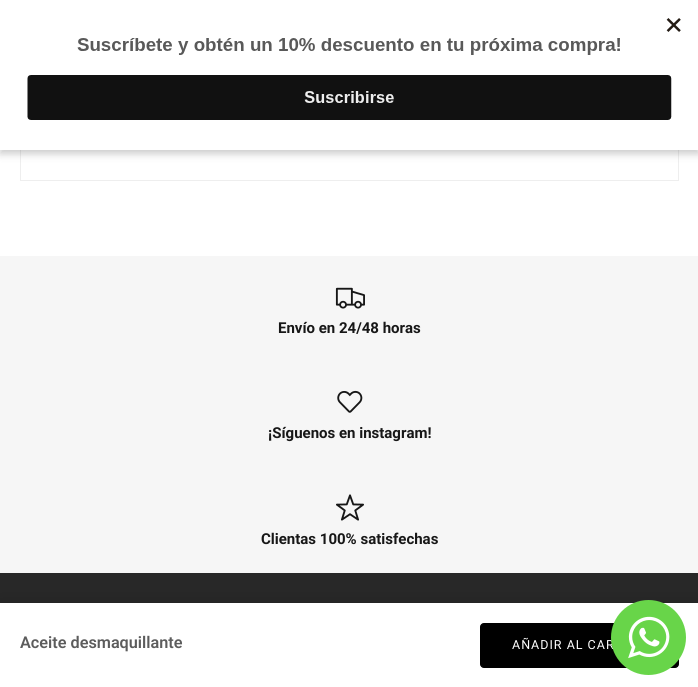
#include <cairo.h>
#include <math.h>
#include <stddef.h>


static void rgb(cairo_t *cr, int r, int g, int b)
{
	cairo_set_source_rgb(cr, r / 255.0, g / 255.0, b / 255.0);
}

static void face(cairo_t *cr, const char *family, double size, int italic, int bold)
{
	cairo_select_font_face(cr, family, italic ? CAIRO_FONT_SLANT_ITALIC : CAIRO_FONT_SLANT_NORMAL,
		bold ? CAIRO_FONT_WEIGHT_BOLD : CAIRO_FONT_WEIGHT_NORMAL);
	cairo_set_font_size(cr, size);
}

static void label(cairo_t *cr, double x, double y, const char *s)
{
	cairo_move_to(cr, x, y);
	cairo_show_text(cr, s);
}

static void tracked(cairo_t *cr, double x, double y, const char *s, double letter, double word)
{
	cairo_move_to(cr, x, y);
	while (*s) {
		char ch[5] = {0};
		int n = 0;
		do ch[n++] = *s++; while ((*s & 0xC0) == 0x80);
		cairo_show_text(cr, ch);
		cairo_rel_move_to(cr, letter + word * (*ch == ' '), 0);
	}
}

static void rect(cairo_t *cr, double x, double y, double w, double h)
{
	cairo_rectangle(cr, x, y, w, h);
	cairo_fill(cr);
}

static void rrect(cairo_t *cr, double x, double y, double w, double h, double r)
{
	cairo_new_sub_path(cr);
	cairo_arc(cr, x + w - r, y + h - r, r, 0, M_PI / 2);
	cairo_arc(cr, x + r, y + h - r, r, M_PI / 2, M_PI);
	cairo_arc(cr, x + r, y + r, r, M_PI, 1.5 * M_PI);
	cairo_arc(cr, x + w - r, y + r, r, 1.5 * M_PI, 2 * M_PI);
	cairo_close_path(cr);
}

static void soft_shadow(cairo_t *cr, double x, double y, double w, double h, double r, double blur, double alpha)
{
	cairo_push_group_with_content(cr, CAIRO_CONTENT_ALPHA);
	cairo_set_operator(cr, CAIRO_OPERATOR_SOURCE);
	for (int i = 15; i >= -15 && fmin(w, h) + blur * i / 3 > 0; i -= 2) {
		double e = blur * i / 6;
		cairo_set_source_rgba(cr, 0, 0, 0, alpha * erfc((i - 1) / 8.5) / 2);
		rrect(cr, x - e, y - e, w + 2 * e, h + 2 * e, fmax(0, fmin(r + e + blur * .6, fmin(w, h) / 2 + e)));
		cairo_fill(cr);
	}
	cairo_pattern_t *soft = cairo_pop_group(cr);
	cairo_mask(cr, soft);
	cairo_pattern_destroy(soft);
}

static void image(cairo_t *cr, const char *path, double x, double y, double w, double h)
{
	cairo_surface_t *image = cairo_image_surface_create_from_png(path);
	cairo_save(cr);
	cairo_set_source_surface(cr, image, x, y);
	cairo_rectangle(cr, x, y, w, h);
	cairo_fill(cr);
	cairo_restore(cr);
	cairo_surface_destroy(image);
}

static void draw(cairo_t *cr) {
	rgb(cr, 255, 255, 255);
	cairo_paint(cr);
	cairo_rectangle(cr, 20.5, -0.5, 658, 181);
	rgb(cr, 238, 238, 238);
	cairo_set_line_width(cr, 1);
	cairo_stroke(cr);
	rgb(cr, 0, 0, 0);
	soft_shadow(cr, 0, 4, 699, 150, 0, 4, 0.2);
	rgb(cr, 255, 255, 255);
	rect(cr, 0, 0, 698, 150);
	image(cr, "image0.png", 27, 18, 654, 102);
	rgb(cr, 246, 246, 246);
	rect(cr, 0, 256, 698, 317);
	image(cr, "image1.png", 335, 287, 30, 22);
	face(cr, "Roboto", 15, 0, 1);
	rgb(cr, 23, 23, 23);
	label(cr, 278, 333, "Envío en 24/48 horas");
	image(cr, "image2.png", 337, 390, 26, 23);
	label(cr, 268, 438, "¡Síguenos en instagram!");
	image(cr, "image3.png", 336, 494, 28, 27);
	label(cr, 261, 544, "Clientas 100% satisfechas");
	rgb(cr, 40, 40, 40);
	rect(cr, 0, 573, 698, 30);
	rgb(cr, 0, 0, 0);
	soft_shadow(cr, -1, 601, 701, 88, 0, 7.5, 0.12);
	rgb(cr, 255, 255, 255);
	rect(cr, 0, 603, 698, 84);
	face(cr, "Roboto SemiBold", 16.25, 0, 0);
	rgb(cr, 92, 92, 92);
	label(cr, 20, 648, "Aceite desmaquillante");
	rgb(cr, 0, 0, 0);
	rrect(cr, 480.5, 623.5, 198, 44, 3.5);
	cairo_fill_preserve(cr);
	cairo_stroke(cr);
	face(cr, "Roboto", 12.5, 0, 0);
	rgb(cr, 255, 255, 255);
	tracked(cr, 512, 649, "AÑADIR AL CAR", 1, 0);
	image(cr, "image4.png", 611, 600, 75, 75);
}

int main(void) {
	cairo_surface_t *surface = cairo_image_surface_create(CAIRO_FORMAT_RGB24, 698, 687);
	cairo_t *cr = cairo_create(surface);
	cairo_font_options_t *options = cairo_font_options_create();
	cairo_font_options_set_hint_metrics(options, CAIRO_HINT_METRICS_OFF);
	cairo_font_options_set_hint_style(options, CAIRO_HINT_STYLE_NONE);
	cairo_set_font_options(cr, options);
	cairo_set_miter_limit(cr, 4);
	draw(cr);
	cairo_surface_write_to_png(surface, "render.png");
	cairo_font_options_destroy(options);
	cairo_destroy(cr);
	cairo_surface_destroy(surface);
	return 0;
}
